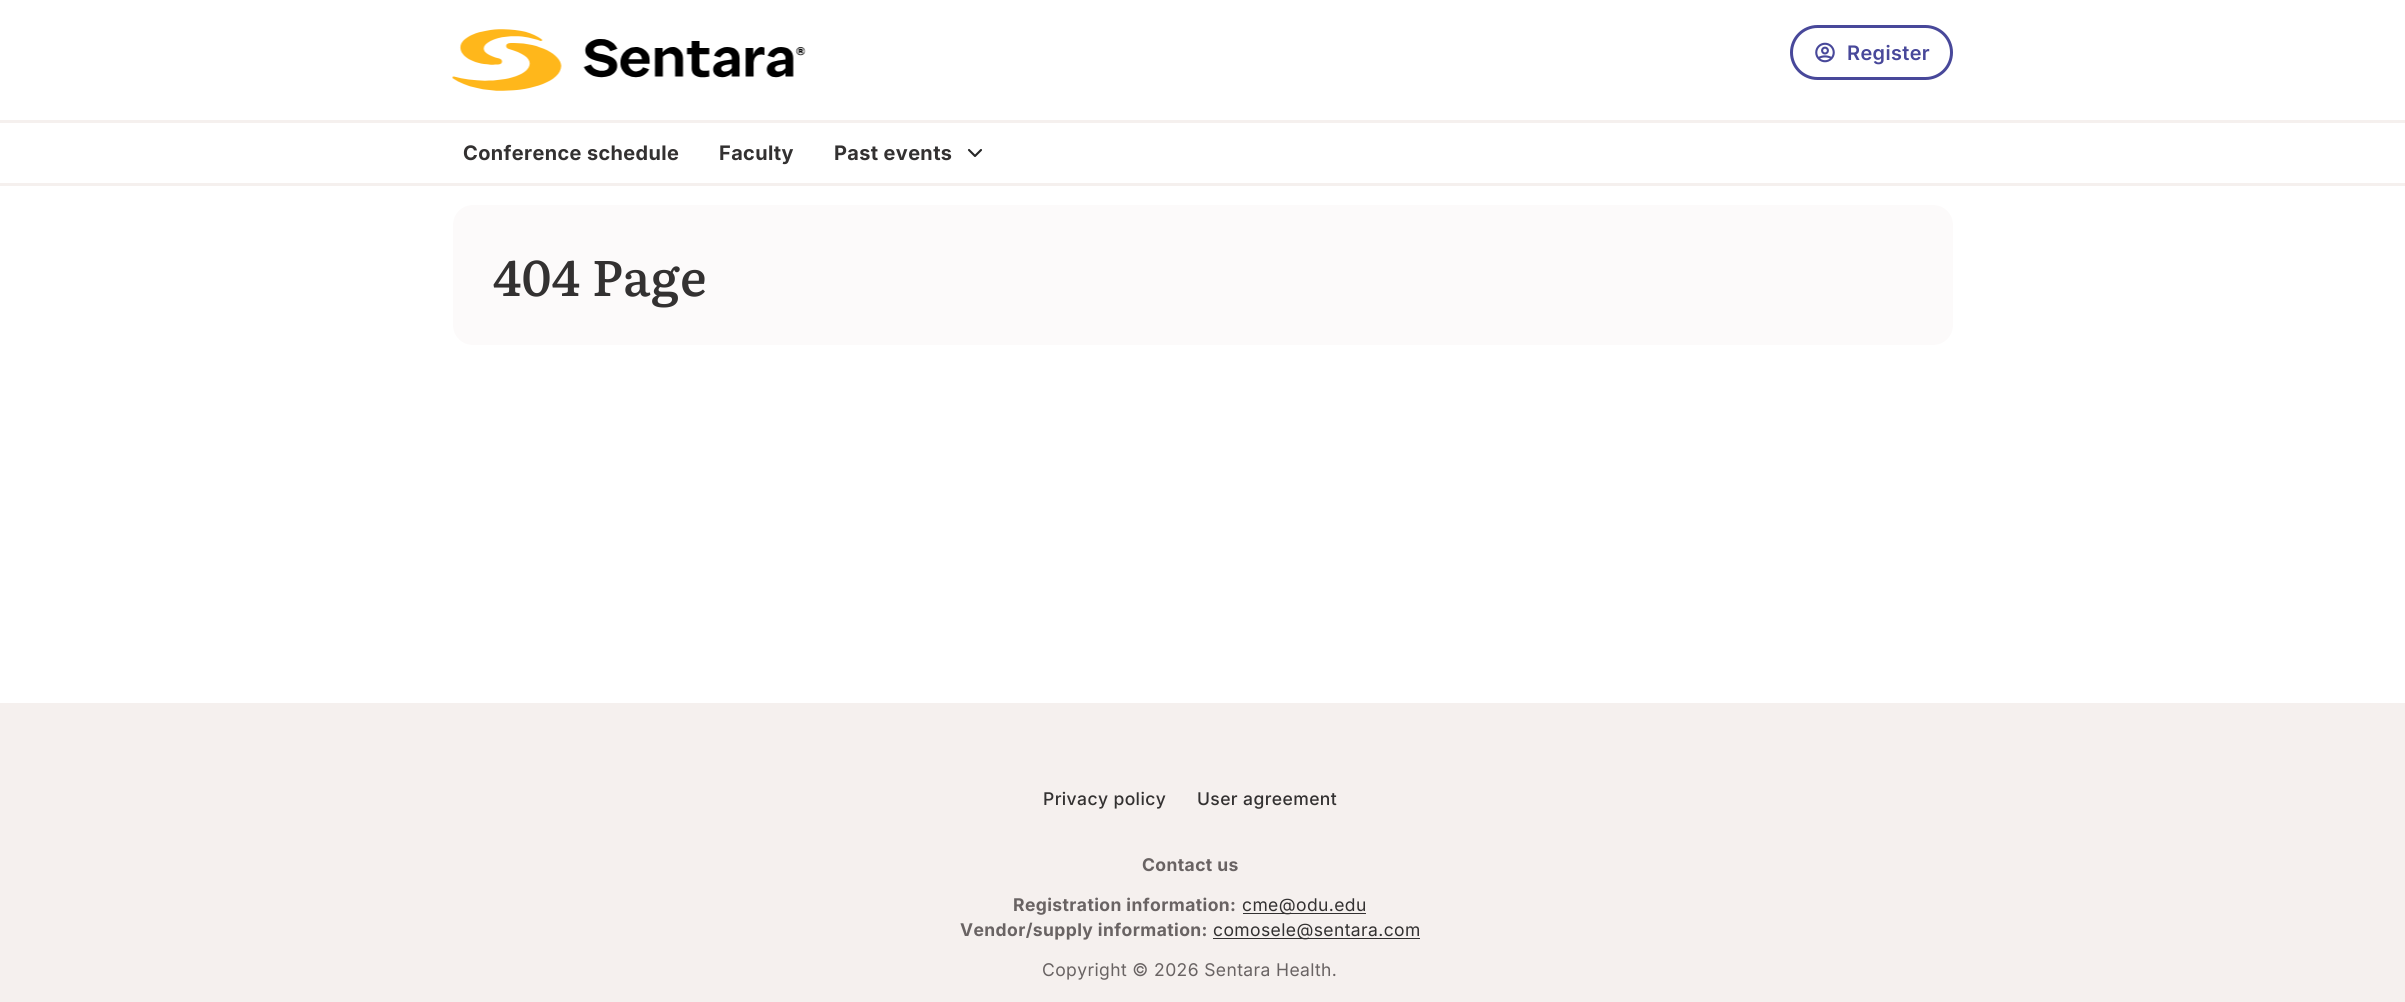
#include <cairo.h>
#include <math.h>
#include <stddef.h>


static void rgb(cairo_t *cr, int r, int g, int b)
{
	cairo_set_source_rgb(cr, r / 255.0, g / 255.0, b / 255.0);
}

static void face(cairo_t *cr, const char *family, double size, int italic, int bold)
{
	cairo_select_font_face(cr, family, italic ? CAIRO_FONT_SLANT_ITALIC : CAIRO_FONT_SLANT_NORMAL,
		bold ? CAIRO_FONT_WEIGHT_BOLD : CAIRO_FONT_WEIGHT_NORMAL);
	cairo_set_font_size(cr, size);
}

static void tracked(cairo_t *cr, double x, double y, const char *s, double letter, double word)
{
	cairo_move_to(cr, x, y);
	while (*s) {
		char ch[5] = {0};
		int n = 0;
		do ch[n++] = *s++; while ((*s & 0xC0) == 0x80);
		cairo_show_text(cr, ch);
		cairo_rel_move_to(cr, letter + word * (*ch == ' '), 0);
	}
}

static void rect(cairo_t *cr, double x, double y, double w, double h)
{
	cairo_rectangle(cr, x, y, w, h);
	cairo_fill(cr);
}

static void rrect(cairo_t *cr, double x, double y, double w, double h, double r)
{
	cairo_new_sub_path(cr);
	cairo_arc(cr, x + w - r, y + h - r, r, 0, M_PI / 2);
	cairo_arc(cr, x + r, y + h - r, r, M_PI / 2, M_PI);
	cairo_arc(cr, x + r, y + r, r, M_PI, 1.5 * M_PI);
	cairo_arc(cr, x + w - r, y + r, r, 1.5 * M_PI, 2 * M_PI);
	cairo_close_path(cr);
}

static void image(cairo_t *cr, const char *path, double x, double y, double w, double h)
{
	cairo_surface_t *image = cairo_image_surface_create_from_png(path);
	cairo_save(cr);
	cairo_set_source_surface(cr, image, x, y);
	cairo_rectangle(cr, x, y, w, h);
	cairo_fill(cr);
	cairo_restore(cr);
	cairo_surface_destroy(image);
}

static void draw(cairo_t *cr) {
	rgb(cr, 255, 255, 255);
	cairo_paint(cr);
	rgb(cr, 245, 240, 238);
	rect(cr, 0, 120, 2405, 3);
	image(cr, "image0.png", 452, 29, 354, 62);
	rrect(cr, 1791.5, 26.5, 160, 52, 26);
	rgb(cr, 72, 72, 154);
	cairo_set_line_width(cr, 3);
	cairo_stroke(cr);
	image(cr, "image1.png", 1815, 42, 20, 21);
	face(cr, "Inter SemiBold", 20, 0, 0);
	tracked(cr, 1847, 60, "Register", 0.4, 0);
	rgb(cr, 245, 240, 238);
	rect(cr, 0, 183, 2405, 3);
	face(cr, "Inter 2", 20, 0, 1);
	rgb(cr, 51, 49, 49);
	tracked(cr, 463, 160, "Conference schedule", 0.4, 0);
	tracked(cr, 719, 160, "Faculty", 0.4, 0);
	tracked(cr, 834, 160, "Past events", 0.4, 0);
	cairo_new_path(cr);
	cairo_move_to(cr, 981, 150);
	cairo_line_to(cr, 975, 156);
	cairo_line_to(cr, 969, 150);
	rgb(cr, 38, 38, 38);
	cairo_set_line_width(cr, 2.1);
	cairo_set_line_cap(cr, CAIRO_LINE_CAP_ROUND);
	cairo_set_line_join(cr, CAIRO_LINE_JOIN_ROUND);
	cairo_stroke(cr);
	rgb(cr, 252, 250, 250);
	rrect(cr, 453, 205, 1500, 140, 20);
	cairo_fill(cr);
	face(cr, "Literata Medium", 50, 0, 0);
	rgb(cr, 51, 49, 49);
	tracked(cr, 493, 296, "404 Page", 0.4, 1);
	rgb(cr, 245, 240, 238);
	rect(cr, 0, 703, 2405, 299);
	face(cr, "Inter Medium", 17.5, 0, 0);
	rgb(cr, 51, 49, 49);
	tracked(cr, 1043, 805, "Privacy policy", 0.4, 0);
	tracked(cr, 1197, 805, "User agreement", 0.4, 0);
	face(cr, "Inter", 17.5, 0, 1);
	rgb(cr, 105, 99, 99);
	tracked(cr, 1142, 871, "Contact us", 0.4, 0);
	tracked(cr, 1013, 911, "Registration information:", 0.4, 0);
	rgb(cr, 51, 49, 49);
	rect(cr, 1243, 913, 123, 1);
	face(cr, "Inter", 17.5, 0, 0);
	tracked(cr, 1242, 911, "cme@odu.edu", 0.4, 0);
	face(cr, "Inter", 17.5, 0, 1);
	rgb(cr, 105, 99, 99);
	tracked(cr, 960, 936, "Vendor/supply information:", 0.4, 0);
	rgb(cr, 51, 49, 49);
	rect(cr, 1213, 938, 207, 1);
	face(cr, "Inter", 17.5, 0, 0);
	tracked(cr, 1213, 936, "comosele@sentara.com", 0.4, 0);
	rgb(cr, 105, 99, 99);
	tracked(cr, 1042, 976, "Copyright © 2026 Sentara Health.", 0.4, 0);
}

int main(void) {
	cairo_surface_t *surface = cairo_image_surface_create(CAIRO_FORMAT_RGB24, 2405, 1002);
	cairo_t *cr = cairo_create(surface);
	cairo_font_options_t *options = cairo_font_options_create();
	cairo_font_options_set_hint_metrics(options, CAIRO_HINT_METRICS_OFF);
	cairo_font_options_set_hint_style(options, CAIRO_HINT_STYLE_NONE);
	cairo_set_font_options(cr, options);
	cairo_set_miter_limit(cr, 4);
	draw(cr);
	cairo_surface_write_to_png(surface, "render.png");
	cairo_font_options_destroy(options);
	cairo_destroy(cr);
	cairo_surface_destroy(surface);
	return 0;
}
